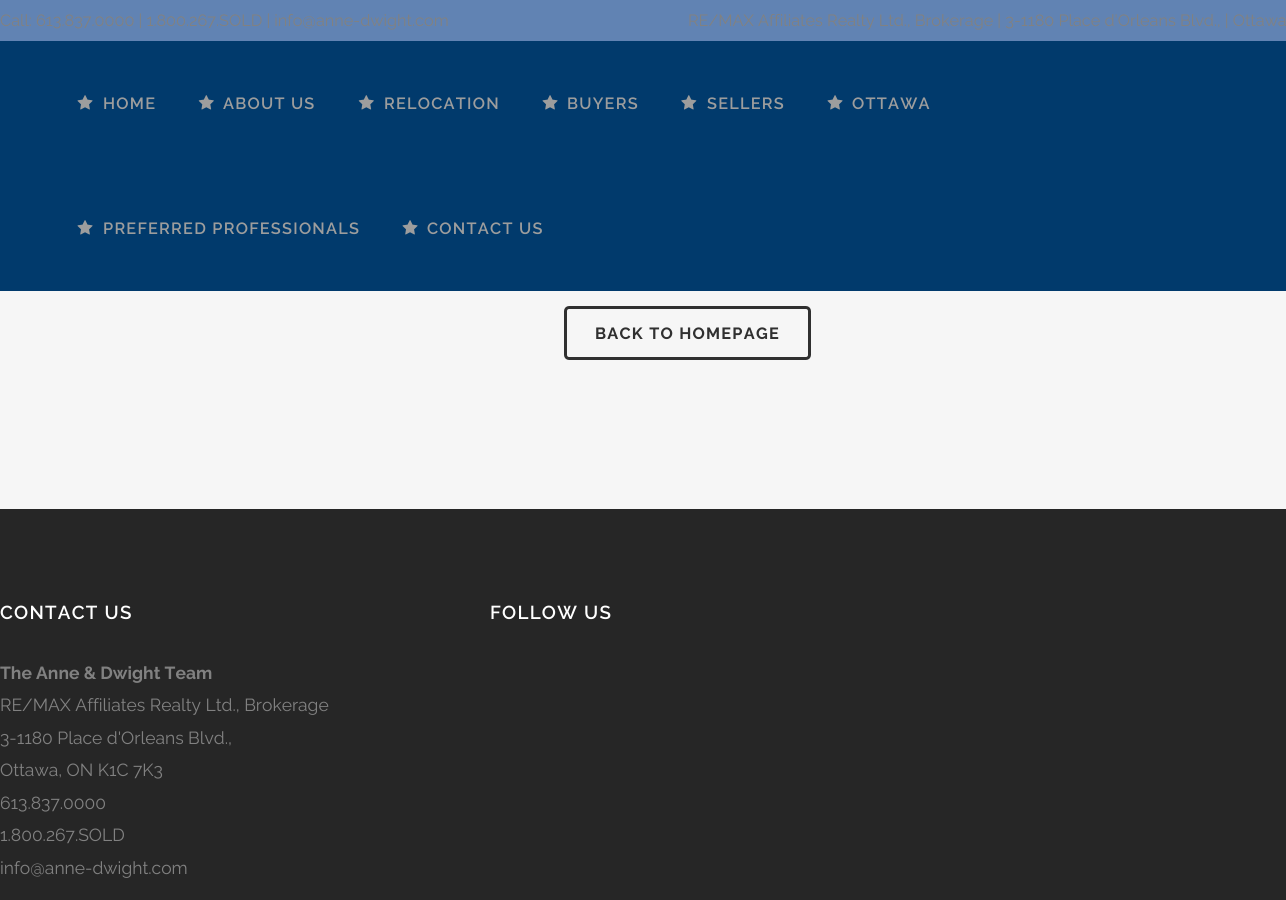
#include <cairo.h>
#include <math.h>
#include <stddef.h>


static void rgb(cairo_t *cr, int r, int g, int b)
{
	cairo_set_source_rgb(cr, r / 255.0, g / 255.0, b / 255.0);
}

static void face(cairo_t *cr, const char *family, double size, int italic, int bold)
{
	cairo_select_font_face(cr, family, italic ? CAIRO_FONT_SLANT_ITALIC : CAIRO_FONT_SLANT_NORMAL,
		bold ? CAIRO_FONT_WEIGHT_BOLD : CAIRO_FONT_WEIGHT_NORMAL);
	cairo_set_font_size(cr, size);
}

static void label(cairo_t *cr, double x, double y, const char *s)
{
	cairo_move_to(cr, x, y);
	cairo_show_text(cr, s);
}

static void tracked(cairo_t *cr, double x, double y, const char *s, double letter, double word)
{
	cairo_move_to(cr, x, y);
	while (*s) {
		char ch[5] = {0};
		int n = 0;
		do ch[n++] = *s++; while ((*s & 0xC0) == 0x80);
		cairo_show_text(cr, ch);
		cairo_rel_move_to(cr, letter + word * (*ch == ' '), 0);
	}
}

static void rect(cairo_t *cr, double x, double y, double w, double h)
{
	cairo_rectangle(cr, x, y, w, h);
	cairo_fill(cr);
}

static void rrect(cairo_t *cr, double x, double y, double w, double h, double r)
{
	cairo_new_sub_path(cr);
	cairo_arc(cr, x + w - r, y + h - r, r, 0, M_PI / 2);
	cairo_arc(cr, x + r, y + h - r, r, M_PI / 2, M_PI);
	cairo_arc(cr, x + r, y + r, r, M_PI, 1.5 * M_PI);
	cairo_arc(cr, x + w - r, y + r, r, 1.5 * M_PI, 2 * M_PI);
	cairo_close_path(cr);
}

static void image(cairo_t *cr, const char *path, double x, double y, double w, double h)
{
	cairo_surface_t *image = cairo_image_surface_create_from_png(path);
	cairo_save(cr);
	cairo_set_source_surface(cr, image, x, y);
	cairo_rectangle(cr, x, y, w, h);
	cairo_fill(cr);
	cairo_restore(cr);
	cairo_surface_destroy(image);
}

static void draw(cairo_t *cr) {
	rgb(cr, 246, 246, 246);
	cairo_paint(cr);
	rgb(cr, 97, 131, 179);
	rect(cr, 0, 0, 1286, 41);
	face(cr, "Raleway", 16.25, 0, 0);
	rgb(cr, 129, 129, 129);
	label(cr, 0, 26, "Call: 613.837.0000 | 1.800.267.SOLD | info@anne-dwight.com");
	label(cr, 688, 26, "RE/MAX Affiliates Realty Ltd., Brokerage | 3-1180 Place d'Orleans Blvd., | Ottawa");
	rgb(cr, 1, 58, 108);
	rect(cr, 0, 41, 1286, 250);
	image(cr, "image0.png", 77, 95, 16, 15);
	face(cr, "Raleway SemiBold", 16.25, 0, 0);
	rgb(cr, 157, 157, 157);
	tracked(cr, 103, 109, "HOME", 1.25, 0);
	image(cr, "image1.png", 198, 95, 16, 15);
	tracked(cr, 223, 109, "ABOUT US", 1.25, 0);
	image(cr, "image1.png", 358, 95, 16, 15);
	tracked(cr, 384, 109, "RELOCATION", 1.25, 0);
	image(cr, "image0.png", 542, 95, 16, 15);
	tracked(cr, 567, 109, "BUYERS", 1.25, 0);
	image(cr, "image2.png", 681, 95, 16, 15);
	tracked(cr, 707, 109, "SELLERS", 1.25, 0);
	image(cr, "image0.png", 827, 95, 16, 15);
	tracked(cr, 852, 109, "OTTAWA", 1.25, 0);
	image(cr, "image0.png", 77, 220, 16, 15);
	tracked(cr, 103, 234, "PREFERRED PROFESSIONALS", 1.25, 0);
	image(cr, "image0.png", 402, 220, 16, 15);
	tracked(cr, 427, 234, "CONTACT US", 1.25, 0);
	rrect(cr, 565.5, 307.5, 244, 51, 3.5);
	rgb(cr, 48, 48, 48);
	cairo_set_line_width(cr, 3);
	cairo_stroke(cr);
	face(cr, "Raleway", 16.25, 0, 1);
	tracked(cr, 595, 339, "BACK TO HOMEPAGE", 1.25, 0);
	rgb(cr, 38, 38, 38);
	rect(cr, 0, 509, 1286, 391);
	face(cr, "Raleway SemiBold", 18.75, 0, 0);
	rgb(cr, 255, 255, 255);
	tracked(cr, 0, 619, "CONTACT US", 1.25, 0);
	face(cr, "Raleway", 17.5, 0, 1);
	rgb(cr, 129, 129, 129);
	label(cr, 0, 679, "The Anne & Dwight Team");
	face(cr, "Raleway", 17.5, 0, 0);
	label(cr, 0, 711, "RE/MAX Affiliates Realty Ltd., Brokerage");
	label(cr, 0, 744, "3-1180 Place d'Orleans Blvd.,");
	label(cr, 0, 776, "Ottawa, ON K1C 7K3");
	label(cr, 0, 809, "613.837.0000");
	label(cr, 0, 841, "1.800.267.SOLD");
	label(cr, 0, 874, "info@anne-dwight.com");
	face(cr, "Raleway SemiBold", 18.75, 0, 0);
	rgb(cr, 255, 255, 255);
	tracked(cr, 490, 619, "FOLLOW US", 1.25, 0);
}

int main(void) {
	cairo_surface_t *surface = cairo_image_surface_create(CAIRO_FORMAT_RGB24, 1286, 900);
	cairo_t *cr = cairo_create(surface);
	cairo_font_options_t *options = cairo_font_options_create();
	cairo_font_options_set_hint_metrics(options, CAIRO_HINT_METRICS_OFF);
	cairo_font_options_set_hint_style(options, CAIRO_HINT_STYLE_NONE);
	cairo_set_font_options(cr, options);
	cairo_set_miter_limit(cr, 4);
	draw(cr);
	cairo_surface_write_to_png(surface, "render.png");
	cairo_font_options_destroy(options);
	cairo_destroy(cr);
	cairo_surface_destroy(surface);
	return 0;
}
